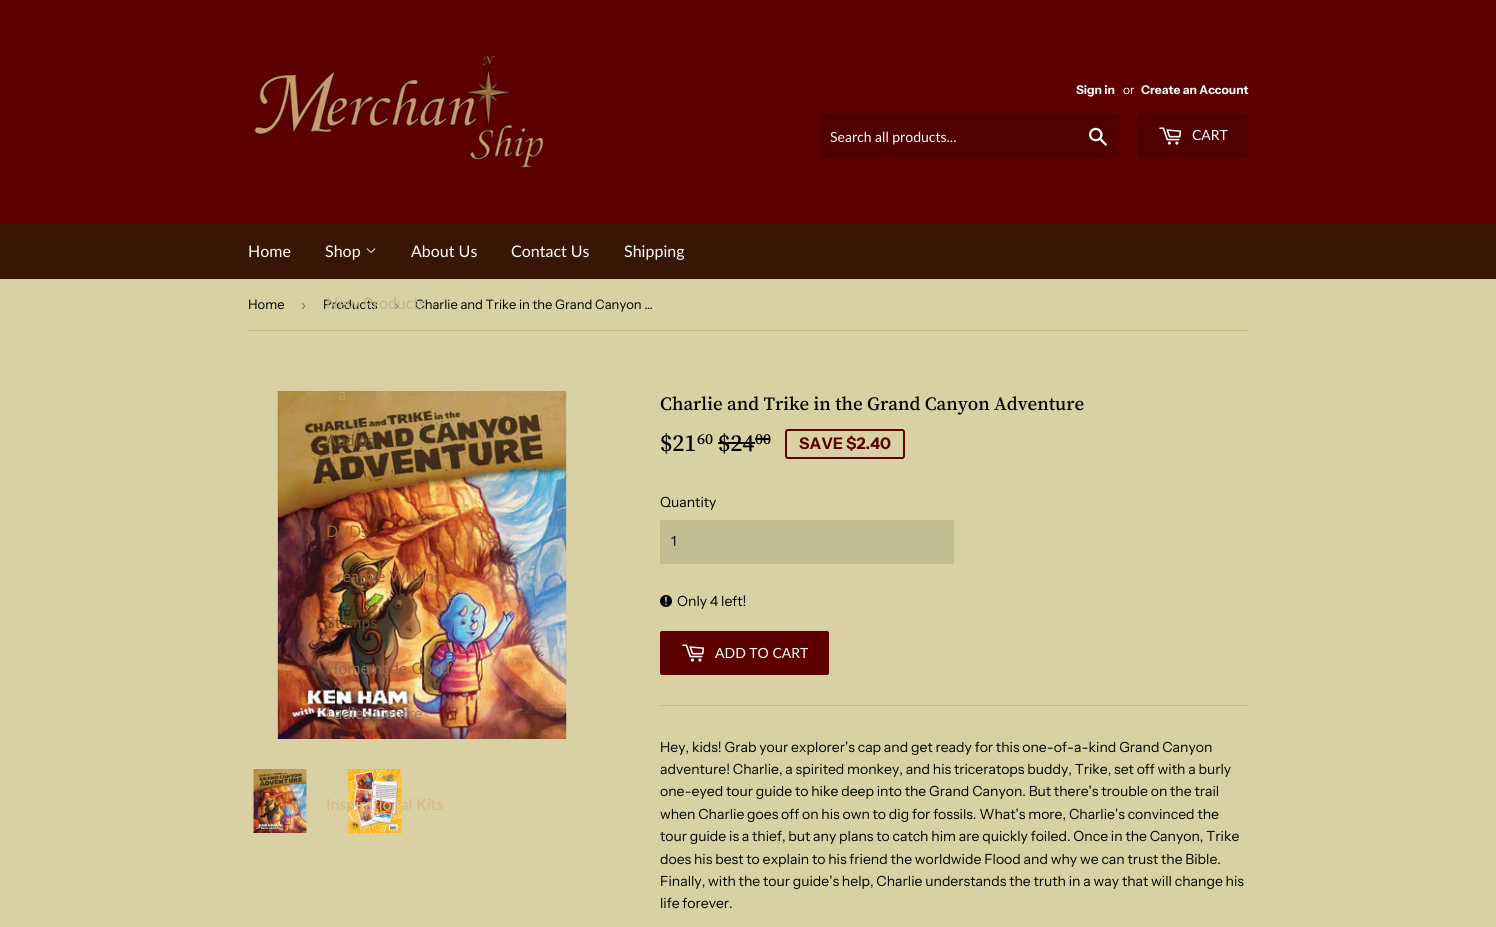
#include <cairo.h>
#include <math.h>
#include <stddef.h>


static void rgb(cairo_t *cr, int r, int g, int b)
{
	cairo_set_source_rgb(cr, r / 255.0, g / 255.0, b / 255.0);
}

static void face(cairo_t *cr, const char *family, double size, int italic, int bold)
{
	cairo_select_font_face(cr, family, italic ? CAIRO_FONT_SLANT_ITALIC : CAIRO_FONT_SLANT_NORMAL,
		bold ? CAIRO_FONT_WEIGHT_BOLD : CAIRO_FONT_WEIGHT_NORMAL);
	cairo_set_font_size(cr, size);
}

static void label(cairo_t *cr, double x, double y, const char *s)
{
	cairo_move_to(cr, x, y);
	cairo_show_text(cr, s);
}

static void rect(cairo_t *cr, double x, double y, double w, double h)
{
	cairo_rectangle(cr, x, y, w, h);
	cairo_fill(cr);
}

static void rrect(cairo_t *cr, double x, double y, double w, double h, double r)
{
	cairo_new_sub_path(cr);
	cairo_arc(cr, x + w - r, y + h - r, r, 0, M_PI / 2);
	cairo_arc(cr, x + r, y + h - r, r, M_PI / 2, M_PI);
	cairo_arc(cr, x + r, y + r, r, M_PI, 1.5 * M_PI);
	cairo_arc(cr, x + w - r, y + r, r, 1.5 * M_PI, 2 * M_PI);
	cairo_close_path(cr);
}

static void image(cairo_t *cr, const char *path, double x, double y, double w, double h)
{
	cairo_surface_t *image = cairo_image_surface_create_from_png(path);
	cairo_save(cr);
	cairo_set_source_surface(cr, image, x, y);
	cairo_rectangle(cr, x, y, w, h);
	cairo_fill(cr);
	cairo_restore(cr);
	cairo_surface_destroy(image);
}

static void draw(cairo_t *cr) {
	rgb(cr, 217, 209, 163);
	cairo_paint(cr);
	rgb(cr, 93, 0, 2);
	rect(cr, 0, 0, 1496, 223);
	image(cr, "image0.png", 254, 55, 290, 113);
	face(cr, "Instrument Sans", 12, 0, 1);
	rgb(cr, 255, 255, 255);
	label(cr, 1076, 94, "Sign in");
	face(cr, "Instrument Sans", 12, 0, 0);
	label(cr, 1123, 94, "or");
	face(cr, "Instrument Sans", 12, 0, 1);
	label(cr, 1141, 94, "Create an Account");
	rgb(cr, 81, 0, 0);
	rrect(cr, 820, 114, 300, 44, 2);
	cairo_fill(cr);
	face(cr, "Lato", 14, 0, 0);
	rgb(cr, 255, 255, 255);
	label(cr, 830, 142, "Search all products...");
	image(cr, "image1.png", 1089, 127, 18, 19);
	rgb(cr, 81, 0, 0);
	rrect(cr, 1138, 114, 110, 44, 2);
	cairo_fill(cr);
	image(cr, "image2.png", 1159, 127, 23, 18);
	rgb(cr, 255, 255, 255);
	label(cr, 1192, 140, "CART");
	rgb(cr, 56, 21, 5);
	rect(cr, 0, 223, 1496, 56);
	face(cr, "Lato", 16, 0, 0);
	rgb(cr, 255, 255, 255);
	label(cr, 248, 257, "Home");
	label(cr, 325, 257, "Shop");
	image(cr, "image3.png", 366, 248, 10, 5);
	face(cr, "Instrument Sans", 13, 0, 0);
	rgb(cr, 0, 0, 0);
	label(cr, 323, 309, "Products");
	face(cr, "Liberation Sans", 15, 0, 0);
	rgb(cr, 118, 118, 118);
	label(cr, 394, 310, "›");
	face(cr, "Instrument Sans", 13, 0, 0);
	rgb(cr, 0, 0, 0);
	label(cr, 415, 309, "Charlie and Trike in the Grand Canyon …");
	face(cr, "Lato", 16, 0, 0);
	rgb(cr, 188, 181, 141);
	label(cr, 326, 309, "New Products");
	image(cr, "image4.png", 277, 391, 290, 348);
	rgb(cr, 191, 158, 95);
	label(cr, 338, 400, "a");
	rgb(cr, 111, 86, 47);
	label(cr, 326, 446, "Audios");
	rgb(cr, 165, 99, 53);
	label(cr, 326, 537, "DVDs");
	label(cr, 326, 582, "Creative Writing");
	rgb(cr, 111, 74, 41);
	label(cr, 326, 628, "Stamps");
	rgb(cr, 151, 99, 79);
	label(cr, 326, 674, "Homemade Goods");
	rgb(cr, 157, 123, 112);
	label(cr, 326, 719, "Ladies Centre");
	image(cr, "image6.png", 347, 769, 55, 64);
	rgb(cr, 215, 184, 139);
	label(cr, 326, 810, "Inspirational Kits");
	rgb(cr, 255, 255, 255);
	label(cr, 411, 257, "About Us");
	label(cr, 511, 257, "Contact Us");
	label(cr, 624, 257, "Shipping");
	rgb(cr, 199, 183, 128);
	rect(cr, 248, 330, 1000, 1);
	face(cr, "Instrument Sans", 13, 0, 0);
	rgb(cr, 0, 0, 0);
	label(cr, 248, 309, "Home");
	face(cr, "Liberation Sans", 15, 0, 0);
	rgb(cr, 118, 118, 118);
	label(cr, 301, 310, "›");
	image(cr, "image5.png", 253, 769, 54, 64);
	face(cr, "Source Serif 4 Medium", 18.7, 0, 0);
	rgb(cr, 0, 0, 0);
	label(cr, 660, 410, "Charlie and Trike in the Grand Canyon Adventure");
	face(cr, "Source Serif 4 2 Medium", 24, 0, 0);
	label(cr, 660, 451, "$21");
	face(cr, "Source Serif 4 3 Medium", 15, 0, 0);
	label(cr, 697, 444, "60");
	face(cr, "Source Serif 4 2 Medium", 24, 0, 0);
	label(cr, 718, 451, "$24");
	rect(cr, 718, 442, 37, 2);
	face(cr, "Source Serif 4 3 Medium", 15, 0, 0);
	label(cr, 755, 444, "00");
	rect(cr, 755, 438, 15, 2);
	rrect(cr, 786, 430, 118, 28, 2);
	rgb(cr, 93, 0, 2);
	cairo_stroke(cr);
	face(cr, "Instrument Sans", 16, 0, 1);
	label(cr, 799, 449, "SAVE $2.40");
	face(cr, "Instrument Sans", 14, 0, 0);
	rgb(cr, 0, 0, 0);
	label(cr, 660, 507, "Quantity");
	rgb(cr, 195, 188, 147);
	rrect(cr, 660.5, 520.5, 293, 43, 1.5);
	cairo_fill_preserve(cr);
	rgb(cr, 199, 183, 128);
	cairo_set_line_width(cr, 1);
	cairo_stroke(cr);
	rgb(cr, 0, 0, 0);
	label(cr, 671, 546, "1");
	image(cr, "image7.png", 660, 595, 12, 12);
	label(cr, 677, 606, "Only 4 left!");
	rgb(cr, 93, 0, 2);
	rrect(cr, 660, 631, 169, 44, 2);
	cairo_fill(cr);
	image(cr, "image8.png", 682, 644, 23, 18);
	face(cr, "Lato", 14, 0, 0);
	rgb(cr, 255, 255, 255);
	label(cr, 715, 658, "ADD TO CART");
	rgb(cr, 199, 183, 128);
	rect(cr, 660, 705, 588, 1);
	face(cr, "Instrument Sans", 14, 0, 0);
	rgb(cr, 0, 0, 0);
	label(cr, 660, 752, "Hey, kids! Grab your explorer's cap and get ready for this one-of-a-kind Grand Canyon");
	label(cr, 660, 774, "adventure! Charlie, a spirited monkey, and his triceratops buddy, Trike, set off with a burly");
	label(cr, 660, 796, "one-eyed tour guide to hike deep into the Grand Canyon. But there's trouble on the trail");
	label(cr, 660, 819, "when Charlie goes off on his own to dig for fossils. What's more, Charlie's convinced the");
	label(cr, 660, 841, "tour guide is a thief, but any plans to catch him are quickly foiled. Once in the Canyon, Trike");
	label(cr, 660, 864, "does his best to explain to his friend the worldwide Flood and why we can trust the Bible.");
	label(cr, 660, 886, "Finally, with the tour guide's help, Charlie understands the truth in a way that will change his");
	label(cr, 660, 908, "life forever.");
}

int main(void) {
	cairo_surface_t *surface = cairo_image_surface_create(CAIRO_FORMAT_RGB24, 1496, 927);
	cairo_t *cr = cairo_create(surface);
	cairo_font_options_t *options = cairo_font_options_create();
	cairo_font_options_set_hint_metrics(options, CAIRO_HINT_METRICS_OFF);
	cairo_font_options_set_hint_style(options, CAIRO_HINT_STYLE_NONE);
	cairo_set_font_options(cr, options);
	cairo_set_miter_limit(cr, 4);
	draw(cr);
	cairo_surface_write_to_png(surface, "render.png");
	cairo_font_options_destroy(options);
	cairo_destroy(cr);
	cairo_surface_destroy(surface);
	return 0;
}
